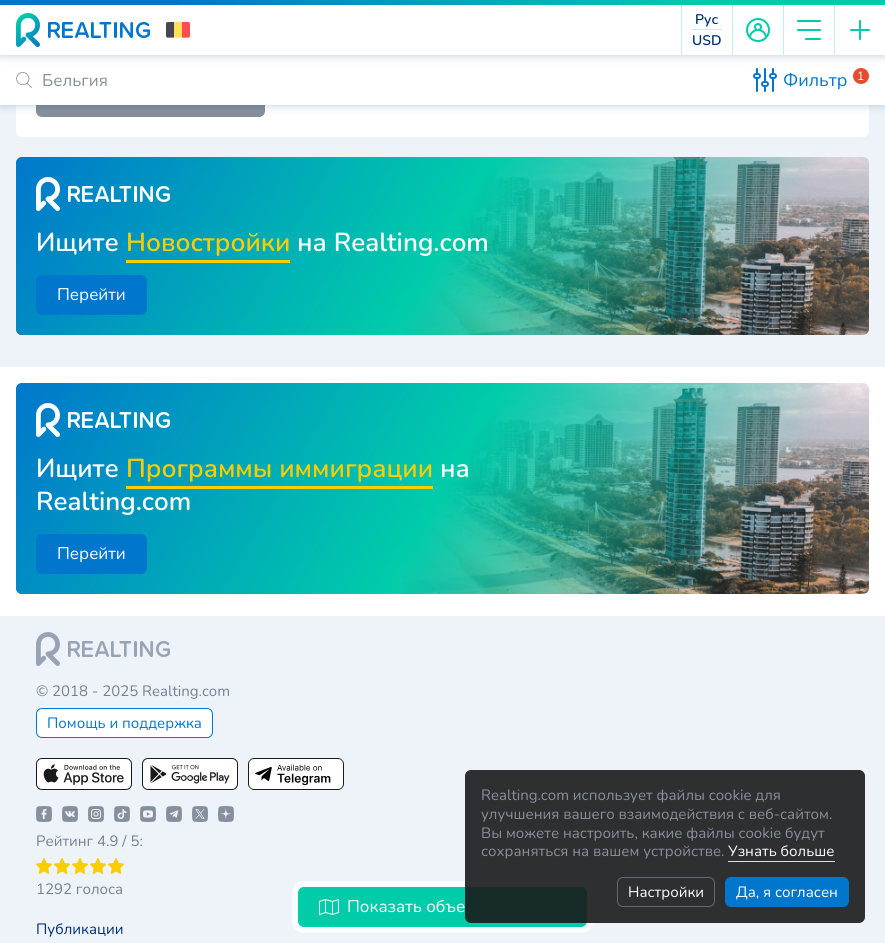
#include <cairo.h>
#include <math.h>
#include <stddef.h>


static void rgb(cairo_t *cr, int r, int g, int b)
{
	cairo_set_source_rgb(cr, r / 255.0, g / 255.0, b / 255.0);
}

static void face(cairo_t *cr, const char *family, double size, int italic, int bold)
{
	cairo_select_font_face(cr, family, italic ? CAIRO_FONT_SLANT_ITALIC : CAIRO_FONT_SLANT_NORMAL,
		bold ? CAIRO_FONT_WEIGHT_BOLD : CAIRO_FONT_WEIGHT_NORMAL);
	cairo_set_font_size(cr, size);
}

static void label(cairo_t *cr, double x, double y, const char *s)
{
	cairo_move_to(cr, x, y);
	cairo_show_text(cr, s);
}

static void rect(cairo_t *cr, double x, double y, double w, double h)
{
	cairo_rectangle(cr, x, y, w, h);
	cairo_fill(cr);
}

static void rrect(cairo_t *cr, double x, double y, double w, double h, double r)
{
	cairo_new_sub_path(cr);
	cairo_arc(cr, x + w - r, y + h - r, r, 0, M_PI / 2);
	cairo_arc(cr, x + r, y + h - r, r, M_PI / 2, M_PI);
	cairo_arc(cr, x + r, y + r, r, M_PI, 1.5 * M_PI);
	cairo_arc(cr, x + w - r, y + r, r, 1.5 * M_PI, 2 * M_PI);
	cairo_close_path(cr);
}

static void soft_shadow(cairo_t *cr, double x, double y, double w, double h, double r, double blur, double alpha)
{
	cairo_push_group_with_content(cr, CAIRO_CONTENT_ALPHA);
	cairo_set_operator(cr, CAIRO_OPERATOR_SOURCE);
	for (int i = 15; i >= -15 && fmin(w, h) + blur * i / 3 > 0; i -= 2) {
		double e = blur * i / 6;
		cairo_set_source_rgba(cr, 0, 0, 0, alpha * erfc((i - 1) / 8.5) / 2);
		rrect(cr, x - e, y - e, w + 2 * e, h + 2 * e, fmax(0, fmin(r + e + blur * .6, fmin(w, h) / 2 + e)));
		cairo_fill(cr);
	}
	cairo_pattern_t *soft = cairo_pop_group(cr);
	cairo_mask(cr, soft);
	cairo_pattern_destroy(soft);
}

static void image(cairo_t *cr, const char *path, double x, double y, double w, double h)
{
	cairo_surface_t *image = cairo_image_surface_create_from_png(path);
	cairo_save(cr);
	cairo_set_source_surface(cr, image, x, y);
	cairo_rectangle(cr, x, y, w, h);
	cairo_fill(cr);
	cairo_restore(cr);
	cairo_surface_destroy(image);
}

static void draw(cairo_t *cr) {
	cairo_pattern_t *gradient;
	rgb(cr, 238, 243, 250);
	cairo_paint(cr);
	rgb(cr, 255, 255, 255);
	rrect(cr, 16, -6, 853, 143, 6);
	cairo_fill(cr);
	rgb(cr, 134, 143, 156);
	rrect(cr, 36.5, 77.5, 228, 39, 5.5);
	cairo_fill_preserve(cr);
	cairo_set_line_width(cr, 1);
	cairo_stroke(cr);
	rgb(cr, 0, 48, 115);
	soft_shadow(cr, 0, 55, 885, 50, 0, 5, 0.25);
	rgb(cr, 255, 255, 255);
	rect(cr, 0, 55, 885, 50);
	image(cr, "image5.png", 753, 68, 24, 24);
	rgb(cr, 230, 76, 46);
	cairo_arc(cr, 861, 76, 8, 0, 2 * M_PI);
	cairo_fill(cr);
	rgb(cr, 0, 48, 115);
	soft_shadow(cr, 0, 5, 885, 50, 0, 5, 0.25);
	rgb(cr, 255, 255, 255);
	rect(cr, 0, 5, 885, 50);
	gradient = cairo_pattern_create_linear(0, 2.5, 885, 2.5);
	cairo_pattern_add_color_stop_rgba(gradient, 0.2, 0, 0.467, 0.8, 1);
	cairo_pattern_add_color_stop_rgba(gradient, 0.8, 0, 0.8, 0.667, 1);
	cairo_set_source(cr, gradient);
	cairo_pattern_destroy(gradient);
	rect(cr, 0, 0, 885, 5);
	image(cr, "image0.png", 16, 13, 134, 34);
	image(cr, "image1.png", 166, 22, 24, 16);
	rgb(cr, 191, 242, 234);
	rect(cr, 681, 5, 1, 50);
	rect(cr, 692, 29, 30, 1);
	face(cr, "Nunito SemiBold", 14, 0, 0);
	rgb(cr, 0, 48, 115);
	label(cr, 695, 24, "Рус");
	label(cr, 692, 45, "USD");
	rgb(cr, 191, 242, 234);
	rect(cr, 732, 5, 1, 50);
	image(cr, "image2.png", 746, 18, 24, 24);
	rect(cr, 783, 5, 1, 50);
	rgb(cr, 0, 204, 170);
	rrect(cr, 805, 38, 16, 2, 1);
	cairo_fill(cr);
	rrect(cr, 797, 29, 24, 2, 1);
	cairo_fill(cr);
	rrect(cr, 797, 20, 24, 2, 1);
	cairo_fill(cr);
	rgb(cr, 191, 242, 234);
	rect(cr, 834, 5, 1, 50);
	image(cr, "image3.png", 850, 20, 20, 20);
	image(cr, "image4.png", 16, 72, 16, 16);
	face(cr, "Nunito", 17, 0, 0);
	rgb(cr, 134, 143, 156);
	label(cr, 42, 86, "Бельгия");
	face(cr, "Nunito", 18, 0, 0);
	rgb(cr, 0, 119, 204);
	label(cr, 783, 86, "Фильтр");
	face(cr, "Nunito", 12, 0, 0);
	rgb(cr, 255, 255, 255);
	label(cr, 857, 80, "1");
	image(cr, "image6.png", 16, 157, 853, 178);
	gradient = cairo_pattern_create_linear(84, 39, 801, 453);
	cairo_pattern_add_color_stop_rgba(gradient, 0, 0, 0.467, 0.8, 1);
	cairo_pattern_add_color_stop_rgba(gradient, 0.5, 0, 0.8, 0.667, 1);
	cairo_pattern_add_color_stop_rgba(gradient, 0.85, 0, 0.8, 0.667, 0);
	cairo_set_source(cr, gradient);
	cairo_pattern_destroy(gradient);
	rrect(cr, 16, 157, 853, 178, 6);
	cairo_fill(cr);
	image(cr, "image7.png", 36, 177, 134, 34);
	face(cr, "Nunito SemiBold", 26, 0, 0);
	rgb(cr, 255, 255, 255);
	label(cr, 36, 251, "Ищите");
	rgb(cr, 249, 206, 0);
	label(cr, 126, 251, "Новостройки");
	rect(cr, 126, 260, 164, 3);
	rgb(cr, 255, 255, 255);
	label(cr, 297, 251, "на Realting.com");
	rgb(cr, 0, 119, 204);
	rrect(cr, 36.5, 275.5, 110, 39, 5.5);
	cairo_fill_preserve(cr);
	cairo_stroke(cr);
	face(cr, "Nunito", 17, 0, 0);
	rgb(cr, 255, 255, 255);
	label(cr, 57, 300, "Перейти");
	rect(cr, 0, 367, 885, 249);
	image(cr, "image8.png", 16, 383, 853, 211);
	gradient = cairo_pattern_create_linear(77, 277, 808, 700);
	cairo_pattern_add_color_stop_rgba(gradient, 0, 0, 0.467, 0.8, 1);
	cairo_pattern_add_color_stop_rgba(gradient, 0.5, 0, 0.8, 0.667, 1);
	cairo_pattern_add_color_stop_rgba(gradient, 0.85, 0, 0.8, 0.667, 0);
	cairo_set_source(cr, gradient);
	cairo_pattern_destroy(gradient);
	rrect(cr, 16, 383, 853, 211, 6);
	cairo_fill(cr);
	image(cr, "image9.png", 36, 403, 134, 34);
	face(cr, "Nunito SemiBold", 26, 0, 0);
	rgb(cr, 255, 255, 255);
	label(cr, 36, 477, "Ищите");
	rgb(cr, 249, 206, 0);
	label(cr, 126, 477, "Программы иммиграции");
	rect(cr, 126, 486, 307, 3);
	rgb(cr, 255, 255, 255);
	label(cr, 440, 477, "на");
	label(cr, 36, 510, "Realting.com");
	rgb(cr, 0, 119, 204);
	rrect(cr, 36.5, 534.5, 110, 39, 5.5);
	cairo_fill_preserve(cr);
	cairo_stroke(cr);
	face(cr, "Nunito", 17, 0, 0);
	rgb(cr, 255, 255, 255);
	label(cr, 57, 559, "Перейти");
	image(cr, "image10.png", 36, 632, 134, 34);
	face(cr, "Nunito", 15, 0, 0);
	rgb(cr, 119, 129, 144);
	label(cr, 36, 696, "© 2018 - 2025 Realting.com");
	rgb(cr, 255, 255, 255);
	rrect(cr, 36.5, 708.5, 176, 29, 5.5);
	cairo_fill_preserve(cr);
	rgb(cr, 0, 119, 204);
	cairo_stroke(cr);
	label(cr, 47, 728, "Помощь и поддержка");
	image(cr, "image11.png", 36, 758, 96, 32);
	image(cr, "image12.png", 142, 758, 96, 32);
	image(cr, "image13.png", 248, 758, 96, 32);
	image(cr, "image14.png", 36, 806, 16, 16);
	image(cr, "image15.png", 62, 806, 16, 16);
	image(cr, "image16.png", 88, 806, 16, 16);
	image(cr, "image17.png", 114, 806, 16, 16);
	image(cr, "image18.png", 140, 806, 16, 16);
	image(cr, "image19.png", 166, 806, 16, 16);
	image(cr, "image20.png", 192, 806, 16, 16);
	image(cr, "image21.png", 218, 806, 16, 16);
	rgb(cr, 119, 129, 144);
	label(cr, 36, 846, "Рейтинг 4.9 / 5:");
	image(cr, "image22.png", 36, 858, 16, 16);
	image(cr, "image22.png", 54, 858, 16, 16);
	image(cr, "image22.png", 72, 858, 16, 16);
	image(cr, "image22.png", 90, 858, 16, 16);
	image(cr, "image22.png", 108, 858, 16, 16);
	label(cr, 36, 894, "1292 голоса");
	rgb(cr, 0, 48, 115);
	label(cr, 36, 934, "Публикации");
	rrect(cr, 295, 884, 295, 46, 9);
	cairo_set_source_rgba(cr, 1, 1, 1, 0.75);
	cairo_set_line_width(cr, 6);
	cairo_stroke(cr);
	rgb(cr, 0, 204, 170);
	rrect(cr, 298.5, 887.5, 288, 39, 5.5);
	cairo_fill_preserve(cr);
	cairo_set_line_width(cr, 1);
	cairo_stroke(cr);
	image(cr, "image23.png", 319, 899, 20, 16);
	face(cr, "Nunito", 17, 0, 0);
	rgb(cr, 255, 255, 255);
	label(cr, 347, 912, "Показать объе");
	cairo_set_source_rgba(cr, 0.102, 0.102, 0.102, 0.9);
	rrect(cr, 465, 770, 400, 153, 6);
	cairo_fill(cr);
	face(cr, "Nunito", 15, 0, 0);
	rgb(cr, 134, 143, 156);
	label(cr, 481, 800, "Realting.com использует файлы cookie для");
	label(cr, 481, 819, "улучшения вашего взаимодействия с веб-сайтом.");
	label(cr, 481, 838, "Вы можете настроить, какие файлы cookie будут");
	label(cr, 481, 856, "сохраняться на вашем устройстве.");
	rgb(cr, 255, 255, 255);
	label(cr, 728, 856, "Узнать больше");
	rgb(cr, 220, 223, 227);
	rect(cr, 728, 861, 107, 1);
	rrect(cr, 617.5, 877.5, 97, 29, 5.5);
	rgb(cr, 96, 104, 115);
	cairo_stroke(cr);
	rgb(cr, 255, 255, 255);
	label(cr, 628, 897, "Настройки");
	rgb(cr, 0, 119, 204);
	rrect(cr, 725.5, 877.5, 123, 29, 5.5);
	cairo_fill_preserve(cr);
	cairo_stroke(cr);
	rgb(cr, 255, 255, 255);
	label(cr, 736, 897, "Да, я согласен");
}

int main(void) {
	cairo_surface_t *surface = cairo_image_surface_create(CAIRO_FORMAT_RGB24, 885, 943);
	cairo_t *cr = cairo_create(surface);
	cairo_font_options_t *options = cairo_font_options_create();
	cairo_font_options_set_hint_metrics(options, CAIRO_HINT_METRICS_OFF);
	cairo_font_options_set_hint_style(options, CAIRO_HINT_STYLE_NONE);
	cairo_set_font_options(cr, options);
	cairo_set_miter_limit(cr, 4);
	draw(cr);
	cairo_surface_write_to_png(surface, "render.png");
	cairo_font_options_destroy(options);
	cairo_destroy(cr);
	cairo_surface_destroy(surface);
	return 0;
}
